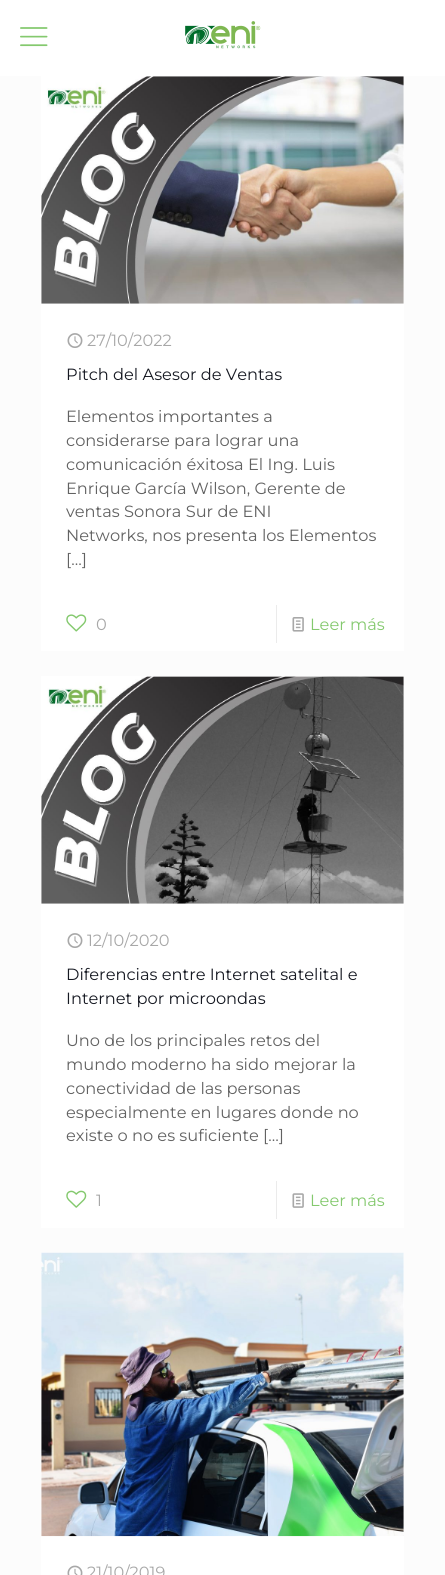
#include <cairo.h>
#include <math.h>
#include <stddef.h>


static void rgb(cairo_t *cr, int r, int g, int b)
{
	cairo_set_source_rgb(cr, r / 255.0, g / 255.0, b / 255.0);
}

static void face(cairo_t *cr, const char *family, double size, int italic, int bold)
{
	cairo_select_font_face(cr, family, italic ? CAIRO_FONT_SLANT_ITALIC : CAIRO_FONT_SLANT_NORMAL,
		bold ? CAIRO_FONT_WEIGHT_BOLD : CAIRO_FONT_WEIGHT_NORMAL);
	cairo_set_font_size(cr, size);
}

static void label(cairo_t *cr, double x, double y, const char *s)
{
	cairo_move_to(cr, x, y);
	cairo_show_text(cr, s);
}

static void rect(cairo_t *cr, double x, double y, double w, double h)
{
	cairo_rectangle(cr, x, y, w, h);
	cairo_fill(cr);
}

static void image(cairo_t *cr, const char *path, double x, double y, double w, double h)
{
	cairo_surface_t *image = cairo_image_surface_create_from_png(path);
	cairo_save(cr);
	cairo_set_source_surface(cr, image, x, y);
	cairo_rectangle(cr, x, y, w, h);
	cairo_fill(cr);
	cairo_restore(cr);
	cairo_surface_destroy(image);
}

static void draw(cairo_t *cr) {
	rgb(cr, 252, 252, 252);
	cairo_paint(cr);
	rgb(cr, 255, 255, 255);
	rect(cr, 0, 0, 445, 76);
	image(cr, "image0.png", 20, 27, 28, 20);
	image(cr, "image1.png", 185, 21, 76, 28);
	rect(cr, 41, 76, 363, 575);
	image(cr, "image2.png", 41, 76, 363, 228);
	image(cr, "image3.png", 67, 333, 16, 15);
	face(cr, "Montserrat Thin", 16.25, 0, 0);
	rgb(cr, 168, 168, 168);
	label(cr, 87, 346, "27/10/2022");
	rgb(cr, 22, 25, 34);
	label(cr, 66, 380, "Pitch del Asesor de Ventas");
	rgb(cr, 98, 98, 98);
	label(cr, 66, 422, "Elementos importantes a");
	label(cr, 66, 446, "considerarse para lograr una");
	label(cr, 66, 470, "comunicación éxitosa El Ing. Luis");
	label(cr, 66, 494, "Enrique García Wilson, Gerente de");
	label(cr, 66, 517, "ventas Sonora Sur de ENI");
	label(cr, 66, 541, "Networks, nos presenta los Elementos");
	label(cr, 66, 565, "[…]");
	image(cr, "image4.png", 66, 614, 21, 18);
	rgb(cr, 168, 168, 168);
	label(cr, 96, 630, "0");
	rgb(cr, 235, 235, 235);
	rect(cr, 276, 605, 1, 38);
	image(cr, "image5.png", 292, 617, 12, 15);
	rgb(cr, 132, 201, 110);
	label(cr, 310, 630, "Leer más");
	rgb(cr, 255, 255, 255);
	rect(cr, 41, 676, 363, 552);
	image(cr, "image6.png", 41, 676, 363, 228);
	image(cr, "image3.png", 67, 933, 16, 15);
	rgb(cr, 168, 168, 168);
	label(cr, 87, 946, "12/10/2020");
	rgb(cr, 22, 25, 34);
	label(cr, 66, 980, "Diferencias entre Internet satelital e");
	label(cr, 66, 1004, "Internet por microondas");
	rgb(cr, 98, 98, 98);
	label(cr, 66, 1046, "Uno de los principales retos del");
	label(cr, 66, 1070, "mundo moderno ha sido mejorar la");
	label(cr, 66, 1094, "conectividad de las personas");
	label(cr, 66, 1118, "especialmente en lugares donde no");
	label(cr, 66, 1141, "existe o no es suficiente […]");
	image(cr, "image7.png", 66, 1190, 21, 18);
	rgb(cr, 168, 168, 168);
	label(cr, 96, 1206, "1");
	rgb(cr, 235, 235, 235);
	rect(cr, 276, 1181, 1, 38);
	image(cr, "image8.png", 292, 1193, 12, 15);
	rgb(cr, 132, 201, 110);
	label(cr, 310, 1206, "Leer más");
	rgb(cr, 255, 255, 255);
	rect(cr, 41, 1253, 363, 322);
	image(cr, "image9.png", 41, 1252, 363, 285);
	image(cr, "image10.png", 67, 1565, 16, 10);
	rgb(cr, 168, 168, 168);
	label(cr, 87, 1578, "21/10/2019");
}

int main(void) {
	cairo_surface_t *surface = cairo_image_surface_create(CAIRO_FORMAT_RGB24, 445, 1575);
	cairo_t *cr = cairo_create(surface);
	cairo_font_options_t *options = cairo_font_options_create();
	cairo_font_options_set_hint_metrics(options, CAIRO_HINT_METRICS_OFF);
	cairo_font_options_set_hint_style(options, CAIRO_HINT_STYLE_NONE);
	cairo_set_font_options(cr, options);
	cairo_set_miter_limit(cr, 4);
	draw(cr);
	cairo_surface_write_to_png(surface, "render.png");
	cairo_font_options_destroy(options);
	cairo_destroy(cr);
	cairo_surface_destroy(surface);
	return 0;
}
